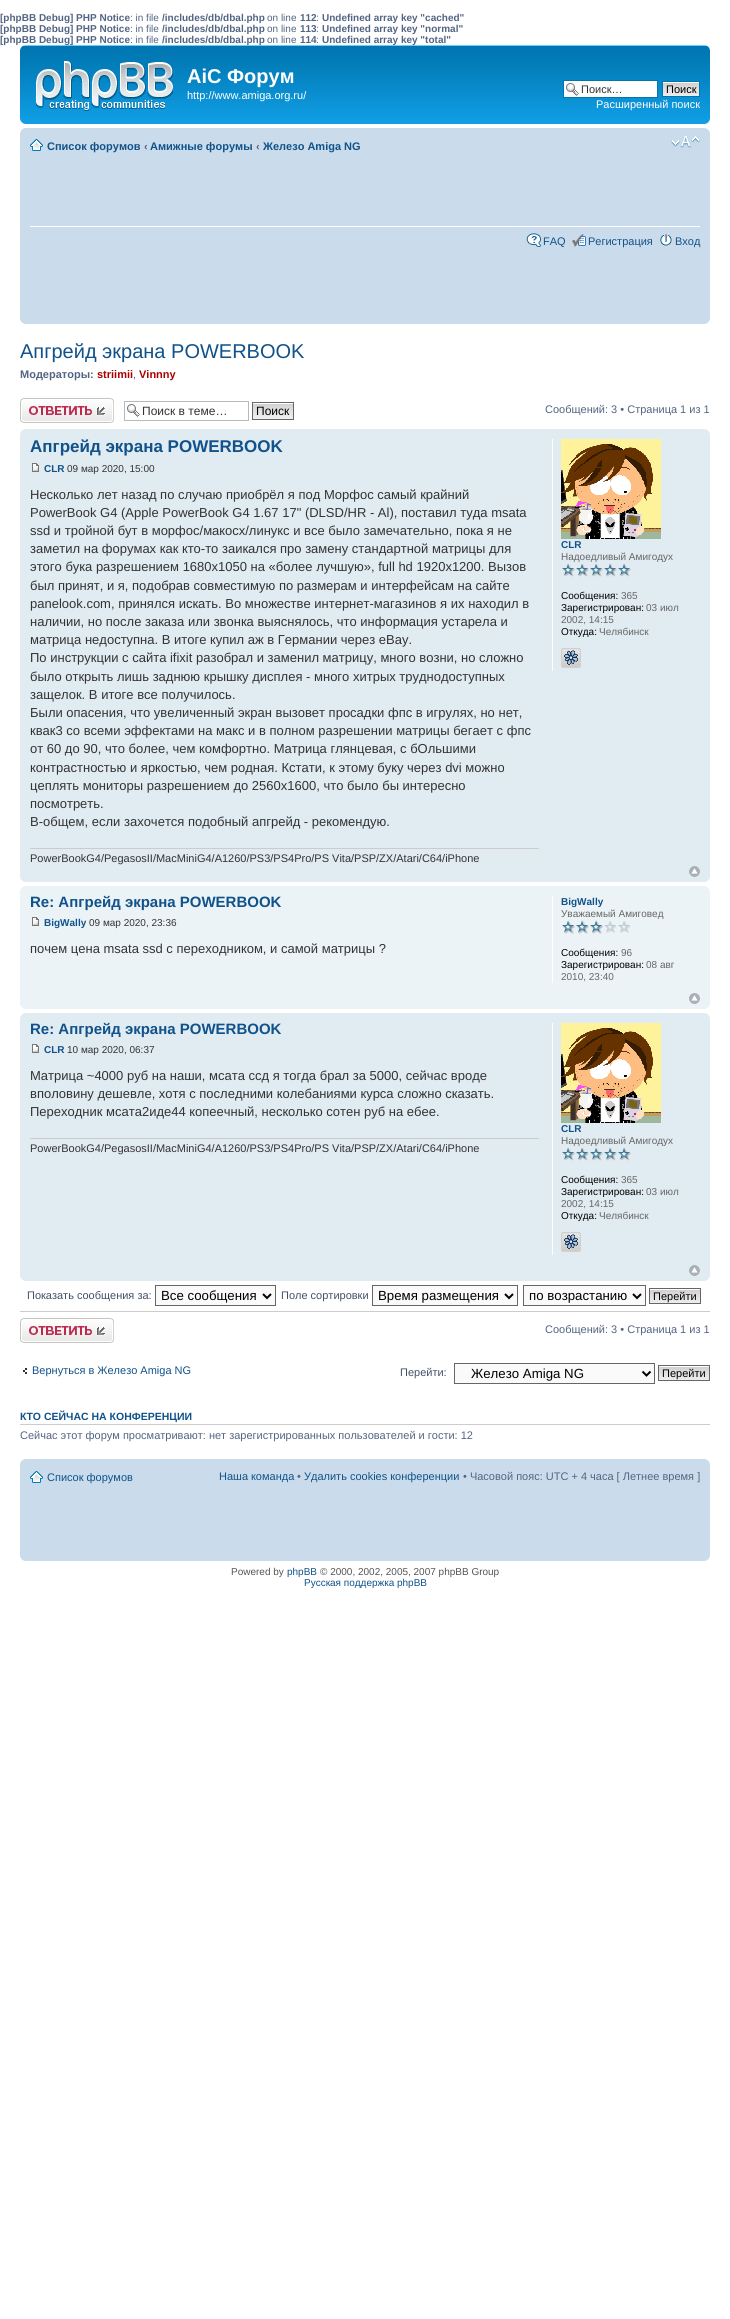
#include <cairo.h>
#include <math.h>
#include <stddef.h>


static void rgb(cairo_t *cr, int r, int g, int b)
{
	cairo_set_source_rgb(cr, r / 255.0, g / 255.0, b / 255.0);
}

static void face(cairo_t *cr, const char *family, double size, int italic, int bold)
{
	cairo_select_font_face(cr, family, italic ? CAIRO_FONT_SLANT_ITALIC : CAIRO_FONT_SLANT_NORMAL,
		bold ? CAIRO_FONT_WEIGHT_BOLD : CAIRO_FONT_WEIGHT_NORMAL);
	cairo_set_font_size(cr, size);
}

static void label(cairo_t *cr, double x, double y, const char *s)
{
	cairo_move_to(cr, x, y);
	cairo_show_text(cr, s);
}

static void rect(cairo_t *cr, double x, double y, double w, double h)
{
	cairo_rectangle(cr, x, y, w, h);
	cairo_fill(cr);
}

static void image(cairo_t *cr, const char *path, double x, double y, double w, double h)
{
	cairo_surface_t *image = cairo_image_surface_create_from_png(path);
	cairo_save(cr);
	cairo_set_source_surface(cr, image, x, y);
	cairo_rectangle(cr, x, y, w, h);
	cairo_fill(cr);
	cairo_restore(cr);
	cairo_surface_destroy(image);
}

static void draw(cairo_t *cr) {
	rgb(cr, 255, 255, 255);
	cairo_paint(cr);
	face(cr, "Liberation Sans", 10, 0, 1);
	rgb(cr, 83, 100, 130);
	label(cr, 0, 21, "[phpBB Debug] PHP Notice");
	face(cr, "Liberation Sans", 10, 0, 0);
	label(cr, 130, 21, ": in file");
	face(cr, "Liberation Sans", 10, 0, 1);
	label(cr, 162, 21, "/includes/db/dbal.php");
	face(cr, "Liberation Sans", 10, 0, 0);
	label(cr, 267, 21, "on line");
	face(cr, "Liberation Sans", 10, 0, 1);
	label(cr, 300, 21, "112");
	face(cr, "Liberation Sans", 10, 0, 0);
	label(cr, 316, 21, ":");
	face(cr, "Liberation Sans", 10, 0, 1);
	label(cr, 322, 21, "Undefined array key \"cached\"");
	label(cr, 0, 32, "[phpBB Debug] PHP Notice");
	face(cr, "Liberation Sans", 10, 0, 0);
	label(cr, 130, 32, ": in file");
	face(cr, "Liberation Sans", 10, 0, 1);
	label(cr, 162, 32, "/includes/db/dbal.php");
	face(cr, "Liberation Sans", 10, 0, 0);
	label(cr, 267, 32, "on line");
	face(cr, "Liberation Sans", 10, 0, 1);
	label(cr, 300, 32, "113");
	face(cr, "Liberation Sans", 10, 0, 0);
	label(cr, 316, 32, ":");
	face(cr, "Liberation Sans", 10, 0, 1);
	label(cr, 322, 32, "Undefined array key \"normal\"");
	image(cr, "image0.png", 20, 45, 690, 79);
	image(cr, "image1.png", 20, 45, 5, 5);
	label(cr, 0, 43, "[phpBB Debug] PHP Notice");
	face(cr, "Liberation Sans", 10, 0, 0);
	label(cr, 130, 43, ": in file");
	face(cr, "Liberation Sans", 10, 0, 1);
	label(cr, 162, 43, "/includes/db/dbal.php");
	face(cr, "Liberation Sans", 10, 0, 0);
	label(cr, 267, 43, "on line");
	face(cr, "Liberation Sans", 10, 0, 1);
	label(cr, 300, 43, "114");
	face(cr, "Liberation Sans", 10, 0, 0);
	label(cr, 316, 43, ":");
	face(cr, "Liberation Sans", 10, 0, 1);
	label(cr, 322, 43, "Undefined array key \"total\"");
	image(cr, "image2.png", 705, 45, 5, 5);
	image(cr, "image3.png", 36, 61, 137, 50);
	face(cr, "Liberation Sans", 20, 0, 1);
	rgb(cr, 255, 255, 255);
	label(cr, 187, 83, "AiC Форум");
	face(cr, "Liberation Sans", 11, 0, 0);
	label(cr, 187, 99, "http://www.amiga.org.ru/");
	rect(cr, 564, 81, 93, 16);
	image(cr, "image4.png", 566, 83, 13, 13);
	cairo_rectangle(cr, 563.5, 80.5, 94, 17);
	rgb(cr, 0, 117, 176);
	cairo_set_line_width(cr, 1);
	cairo_stroke(cr);
	rgb(cr, 51, 51, 51);
	label(cr, 581, 93, "Поиск…");
	image(cr, "image5.png", 663, 82, 36, 14);
	cairo_rectangle(cr, 662.5, 81.5, 37, 15);
	rgb(cr, 0, 117, 176);
	cairo_stroke(cr);
	rgb(cr, 0, 0, 0);
	label(cr, 666, 93, "Поиск");
	rgb(cr, 255, 255, 255);
	label(cr, 596, 108, "Расширенный поиск");
	image(cr, "image6.png", 20, 119, 5, 5);
	image(cr, "image7.png", 705, 119, 5, 5);
	rgb(cr, 202, 220, 235);
	rect(cr, 20, 128, 690, 196);
	image(cr, "image8.png", 20, 128, 5, 5);
	image(cr, "image9.png", 705, 128, 5, 5);
	rgb(cr, 255, 255, 255);
	rect(cr, 30, 226, 670, 1);
	image(cr, "image10.png", 30, 139, 13, 12);
	face(cr, "Liberation Sans", 11, 0, 1);
	rgb(cr, 16, 82, 137);
	label(cr, 47, 150, "Список форумов");
	rgb(cr, 83, 100, 130);
	label(cr, 144, 150, "‹");
	rgb(cr, 16, 82, 137);
	label(cr, 150, 150, "Амижные форумы");
	rgb(cr, 83, 100, 130);
	label(cr, 256, 150, "‹");
	rgb(cr, 16, 82, 137);
	label(cr, 263, 150, "Железо Amiga NG");
	image(cr, "image11.png", 671, 136, 29, 12);
	image(cr, "image12.png", 526, 233, 16, 14);
	face(cr, "Liberation Sans", 11, 0, 0);
	label(cr, 543, 245, "FAQ");
	image(cr, "image13.png", 572, 234, 14, 13);
	label(cr, 588, 245, "Регистрация");
	image(cr, "image14.png", 660, 234, 12, 12);
	label(cr, 675, 245, "Вход");
	image(cr, "image15.png", 20, 319, 5, 5);
	image(cr, "image16.png", 705, 319, 5, 5);
	face(cr, "Liberation Sans", 20, 0, 0);
	label(cr, 20, 358, "Апгрейд экрана POWERBOOK");
	face(cr, "Liberation Sans", 11, 0, 1);
	rgb(cr, 83, 100, 130);
	label(cr, 20, 378, "Модераторы:");
	rgb(cr, 170, 0, 0);
	label(cr, 97, 378, "striimii");
	face(cr, "Liberation Sans", 11, 0, 0);
	rgb(cr, 83, 100, 130);
	label(cr, 133, 378, ",");
	face(cr, "Liberation Sans", 11, 0, 1);
	rgb(cr, 170, 0, 0);
	label(cr, 139, 378, "Vinnny");
	image(cr, "image17.png", 20, 398, 94, 25);
	image(cr, "image4.png", 127, 404, 13, 13);
	cairo_rectangle(cr, 124.5, 401.5, 124, 19);
	rgb(cr, 180, 186, 192);
	cairo_stroke(cr);
	face(cr, "Liberation Sans", 12, 0, 0);
	rgb(cr, 51, 51, 51);
	label(cr, 142, 415, "Поиск в теме…");
	image(cr, "image18.png", 253, 403, 40, 16);
	cairo_rectangle(cr, 252.5, 402.5, 41, 17);
	rgb(cr, 102, 102, 102);
	cairo_stroke(cr);
	rgb(cr, 0, 0, 0);
	label(cr, 256, 415, "Поиск");
	face(cr, "Liberation Sans", 11, 0, 0);
	rgb(cr, 83, 100, 130);
	label(cr, 545, 413, "Сообщений: 3 • Страница 1 из 1");
	rgb(cr, 225, 235, 242);
	rect(cr, 20, 429, 690, 453);
	image(cr, "image19.png", 20, 429, 5, 5);
	image(cr, "image20.png", 705, 429, 5, 5);
	face(cr, "Liberation Sans", 17, 0, 1);
	rgb(cr, 16, 82, 137);
	label(cr, 30, 452, "Апгрейд экрана POWERBOOK");
	image(cr, "image21.png", 32, 463, 7, 9);
	face(cr, "Liberation Sans", 10, 0, 1);
	label(cr, 44, 472, "CLR");
	face(cr, "Liberation Sans", 10, 0, 0);
	rgb(cr, 51, 51, 51);
	label(cr, 67, 472, "09 мар 2020, 15:00");
	face(cr, "Liberation Sans", 13, 0, 0);
	label(cr, 30, 499, "Несколько лет назад по случаю приобрёл я под Морфос самый крайний");
	label(cr, 30, 517, "PowerBook G4 (Apple PowerBook G4 1.67 17\" (DLSD/HR - Al), поставил туда msata");
	label(cr, 30, 535, "ssd и тройной бут в морфос/макосх/линукс и все было замечательно, пока я не");
	label(cr, 30, 553, "заметил на форумах как кто-то заикался про замену стандартной матрицы для");
	label(cr, 30, 571, "этого бука разрешением 1680х1050 на «более лучшую», full hd 1920х1200. Вызов");
	label(cr, 30, 590, "был принят, и я, подобрав совместимую по размерам и интерфейсам на сайте");
	label(cr, 30, 608, "panelook.com, принялся искать. Во множестве интернет-магазинов я их находил в");
	label(cr, 30, 626, "наличии, но после заказа или звонка выяснялось, что информация устарела и");
	label(cr, 30, 644, "матрица недоступна. В итоге купил аж в Германии через eBay.");
	label(cr, 30, 662, "По инструкции с сайта ifixit разобрал и заменил матрицу, много возни, но сложно");
	label(cr, 30, 681, "было открыть лишь заднюю крышку дисплея - много хитрых труднодоступных");
	label(cr, 30, 699, "защелок. В итоге все получилось.");
	label(cr, 30, 717, "Были опасения, что увеличенный экран вызовет просадки фпс в игрулях, но нет,");
	label(cr, 30, 735, "квак3 со всеми эффектами на макс и в полном разрешении матрицы бегает с фпс");
	label(cr, 30, 753, "от 60 до 90, что более, чем комфортно. Матрица глянцевая, с бОльшими");
	label(cr, 30, 772, "контрастностью и яркостью, чем родная. Кстати, к этому буку через dvi можно");
	label(cr, 30, 790, "цеплять мониторы разрешением до 2560х1600, что было бы интересно");
	label(cr, 30, 808, "посмотреть.");
	label(cr, 30, 826, "В-общем, если захочется подобный апгрейд - рекомендую.");
	rgb(cr, 204, 204, 204);
	rect(cr, 30, 848, 509, 1);
	face(cr, "Liberation Sans", 11, 0, 0);
	rgb(cr, 51, 51, 51);
	label(cr, 30, 862, "PowerBookG4/PegasosII/MacMiniG4/A1260/PS3/PS4Pro/PS Vita/PSP/ZX/Atari/C64/iPhone");
	rgb(cr, 255, 255, 255);
	rect(cr, 552, 439, 1, 232);
	image(cr, "image22.png", 561, 439, 100, 100);
	face(cr, "Liberation Sans", 10, 0, 1);
	rgb(cr, 16, 82, 137);
	label(cr, 561, 548, "CLR");
	face(cr, "Liberation Sans", 10, 0, 0);
	rgb(cr, 102, 102, 102);
	label(cr, 561, 560, "Надоедливый Амигодух");
	image(cr, "image23.png", 562, 563, 69, 14);
	rgb(cr, 0, 0, 0);
	label(cr, 561, 599, "Сообщения:");
	rgb(cr, 102, 102, 102);
	label(cr, 621, 599, "365");
	rgb(cr, 0, 0, 0);
	label(cr, 561, 611, "Зарегистрирован:");
	rgb(cr, 102, 102, 102);
	label(cr, 646, 611, "03 июл");
	label(cr, 561, 623, "2002, 14:15");
	rgb(cr, 0, 0, 0);
	label(cr, 561, 635, "Откуда:");
	rgb(cr, 102, 102, 102);
	label(cr, 599, 635, "Челябинск");
	image(cr, "image24.png", 561, 648, 20, 20);
	image(cr, "image25.png", 689, 866, 11, 11);
	image(cr, "image26.png", 20, 877, 5, 5);
	image(cr, "image27.png", 705, 877, 5, 5);
	rgb(cr, 236, 243, 247);
	rect(cr, 20, 886, 690, 123);
	image(cr, "image28.png", 20, 886, 5, 5);
	image(cr, "image29.png", 705, 886, 5, 5);
	face(cr, "Liberation Sans", 15, 0, 1);
	rgb(cr, 16, 82, 137);
	label(cr, 30, 907, "Re: Апгрейд экрана POWERBOOK");
	image(cr, "image30.png", 32, 917, 7, 9);
	face(cr, "Liberation Sans", 10, 0, 1);
	label(cr, 44, 926, "BigWally");
	face(cr, "Liberation Sans", 10, 0, 0);
	rgb(cr, 51, 51, 51);
	label(cr, 89, 926, "09 мар 2020, 23:36");
	face(cr, "Liberation Sans", 13, 0, 0);
	label(cr, 30, 953, "почем цена msata ssd c переходником, и самой матрицы ?");
	rgb(cr, 255, 255, 255);
	rect(cr, 552, 896, 1, 87);
	face(cr, "Liberation Sans", 10, 0, 1);
	rgb(cr, 16, 82, 137);
	label(cr, 561, 905, "BigWally");
	face(cr, "Liberation Sans", 10, 0, 0);
	rgb(cr, 102, 102, 102);
	label(cr, 561, 917, "Уважаемый Амиговед");
	image(cr, "image31.png", 562, 920, 69, 14);
	rgb(cr, 0, 0, 0);
	label(cr, 561, 956, "Сообщения:");
	rgb(cr, 102, 102, 102);
	label(cr, 621, 956, "96");
	rgb(cr, 0, 0, 0);
	label(cr, 561, 968, "Зарегистрирован:");
	rgb(cr, 102, 102, 102);
	label(cr, 646, 968, "08 авг");
	label(cr, 561, 980, "2010, 23:40");
	image(cr, "image32.png", 689, 993, 11, 11);
	image(cr, "image33.png", 20, 1004, 5, 5);
	image(cr, "image34.png", 705, 1004, 5, 5);
	rgb(cr, 225, 235, 242);
	rect(cr, 20, 1013, 690, 268);
	image(cr, "image19.png", 20, 1013, 5, 5);
	image(cr, "image20.png", 705, 1013, 5, 5);
	face(cr, "Liberation Sans", 15, 0, 1);
	rgb(cr, 16, 82, 137);
	label(cr, 30, 1034, "Re: Апгрейд экрана POWERBOOK");
	image(cr, "image21.png", 32, 1044, 7, 9);
	face(cr, "Liberation Sans", 10, 0, 1);
	label(cr, 44, 1053, "CLR");
	face(cr, "Liberation Sans", 10, 0, 0);
	rgb(cr, 51, 51, 51);
	label(cr, 67, 1053, "10 мар 2020, 06:37");
	face(cr, "Liberation Sans", 13, 0, 0);
	label(cr, 30, 1080, "Матрица ~4000 руб на наши, мсата ссд я тогда брал за 5000, сейчас вроде");
	label(cr, 30, 1098, "вполовину дешевле, хотя с последними колебаниями курса сложно сказать.");
	label(cr, 30, 1116, "Переходник мсата2иде44 копеечный, несколько сотен руб на ебее.");
	rgb(cr, 204, 204, 204);
	rect(cr, 30, 1138, 509, 1);
	face(cr, "Liberation Sans", 11, 0, 0);
	rgb(cr, 51, 51, 51);
	label(cr, 30, 1152, "PowerBookG4/PegasosII/MacMiniG4/A1260/PS3/PS4Pro/PS Vita/PSP/ZX/Atari/C64/iPhone");
	rgb(cr, 255, 255, 255);
	rect(cr, 552, 1023, 1, 232);
	image(cr, "image22.png", 561, 1023, 100, 100);
	face(cr, "Liberation Sans", 10, 0, 1);
	rgb(cr, 16, 82, 137);
	label(cr, 561, 1132, "CLR");
	face(cr, "Liberation Sans", 10, 0, 0);
	rgb(cr, 102, 102, 102);
	label(cr, 561, 1144, "Надоедливый Амигодух");
	image(cr, "image23.png", 562, 1147, 69, 14);
	rgb(cr, 0, 0, 0);
	label(cr, 561, 1183, "Сообщения:");
	rgb(cr, 102, 102, 102);
	label(cr, 621, 1183, "365");
	rgb(cr, 0, 0, 0);
	label(cr, 561, 1195, "Зарегистрирован:");
	rgb(cr, 102, 102, 102);
	label(cr, 646, 1195, "03 июл");
	label(cr, 561, 1207, "2002, 14:15");
	rgb(cr, 0, 0, 0);
	label(cr, 561, 1219, "Откуда:");
	rgb(cr, 102, 102, 102);
	label(cr, 599, 1219, "Челябинск");
	image(cr, "image24.png", 561, 1232, 20, 20);
	image(cr, "image25.png", 689, 1265, 11, 11);
	image(cr, "image26.png", 20, 1276, 5, 5);
	image(cr, "image27.png", 705, 1276, 5, 5);
	face(cr, "Liberation Sans", 11, 0, 0);
	rgb(cr, 66, 80, 103);
	label(cr, 27, 1299, "Показать сообщения за:");
	rgb(cr, 250, 250, 250);
	cairo_rectangle(cr, 155.5, 1285.5, 120, 20);
	cairo_fill_preserve(cr);
	rgb(cr, 102, 102, 102);
	cairo_stroke(cr);
	cairo_new_path(cr);
	cairo_move_to(cr, 263, 1294);
	cairo_line_to(cr, 267, 1298);
	cairo_line_to(cr, 271, 1294);
	rgb(cr, 0, 0, 0);
	cairo_set_line_width(cr, 2);
	cairo_stroke(cr);
	face(cr, "Liberation Sans", 13.25, 0, 0);
	label(cr, 161, 1300, "Все сообщения");
	face(cr, "Liberation Sans", 11, 0, 0);
	rgb(cr, 66, 80, 103);
	label(cr, 281, 1299, "Поле сортировки");
	rgb(cr, 250, 250, 250);
	cairo_rectangle(cr, 372.5, 1285.5, 145, 20);
	cairo_fill_preserve(cr);
	rgb(cr, 102, 102, 102);
	cairo_set_line_width(cr, 1);
	cairo_stroke(cr);
	cairo_new_path(cr);
	cairo_move_to(cr, 505, 1294);
	cairo_line_to(cr, 509, 1298);
	cairo_line_to(cr, 513, 1294);
	rgb(cr, 0, 0, 0);
	cairo_set_line_width(cr, 2);
	cairo_stroke(cr);
	face(cr, "Liberation Sans", 13.25, 0, 0);
	label(cr, 378, 1300, "Время размещения");
	rgb(cr, 250, 250, 250);
	cairo_rectangle(cr, 523.5, 1285.5, 122, 20);
	cairo_fill_preserve(cr);
	rgb(cr, 102, 102, 102);
	cairo_set_line_width(cr, 1);
	cairo_stroke(cr);
	cairo_new_path(cr);
	cairo_move_to(cr, 633, 1294);
	cairo_line_to(cr, 637, 1298);
	cairo_line_to(cr, 641, 1294);
	rgb(cr, 0, 0, 0);
	cairo_set_line_width(cr, 2);
	cairo_stroke(cr);
	label(cr, 529, 1300, "по возрастанию");
	image(cr, "image35.png", 650, 1289, 50, 14);
	cairo_rectangle(cr, 649.5, 1288.5, 51, 15);
	rgb(cr, 102, 102, 102);
	cairo_set_line_width(cr, 1);
	cairo_stroke(cr);
	face(cr, "Liberation Sans", 11, 0, 0);
	rgb(cr, 0, 0, 0);
	label(cr, 653, 1300, "Перейти");
	rgb(cr, 204, 204, 204);
	rect(cr, 20, 1311, 690, 1);
	image(cr, "image17.png", 20, 1318, 94, 25);
	rgb(cr, 83, 100, 130);
	label(cr, 545, 1333, "Сообщений: 3 • Страница 1 из 1");
	image(cr, "image36.png", 23, 1368, 4, 6);
	rgb(cr, 16, 82, 137);
	label(cr, 32, 1374, "Вернуться в Железо Amiga NG");
	rgb(cr, 66, 80, 103);
	label(cr, 400, 1376, "Перейти:");
	rgb(cr, 250, 250, 250);
	cairo_rectangle(cr, 454.5, 1363.5, 200, 20);
	cairo_fill_preserve(cr);
	rgb(cr, 102, 102, 102);
	cairo_stroke(cr);
	cairo_new_path(cr);
	cairo_move_to(cr, 642.5, 1371.5);
	cairo_line_to(cr, 646.5, 1375.5);
	cairo_line_to(cr, 650.5, 1371.5);
	rgb(cr, 0, 0, 0);
	cairo_set_line_width(cr, 2);
	cairo_stroke(cr);
	face(cr, "Liberation Sans", 13.25, 0, 0);
	label(cr, 471, 1378, "Железо Amiga NG");
	image(cr, "image35.png", 659, 1366, 50, 14);
	cairo_rectangle(cr, 658.5, 1365.5, 51, 15);
	rgb(cr, 102, 102, 102);
	cairo_set_line_width(cr, 1);
	cairo_stroke(cr);
	face(cr, "Liberation Sans", 11, 0, 0);
	rgb(cr, 0, 0, 0);
	label(cr, 662, 1377, "Перейти");
	rgb(cr, 204, 204, 204);
	rect(cr, 20, 1424, 690, 1);
	face(cr, "Liberation Sans", 10.5, 0, 1);
	rgb(cr, 16, 82, 137);
	label(cr, 20, 1420, "КТО СЕЙЧАС НА КОНФЕРЕНЦИИ");
	face(cr, "Liberation Sans", 11, 0, 0);
	rgb(cr, 83, 100, 130);
	label(cr, 20, 1439, "Сейчас этот форум просматривают: нет зарегистрированных пользователей и гости: 12");
	rgb(cr, 202, 220, 235);
	rect(cr, 20, 1459, 690, 102);
	image(cr, "image8.png", 20, 1459, 5, 5);
	image(cr, "image9.png", 705, 1459, 5, 5);
	image(cr, "image10.png", 30, 1471, 13, 12);
	rgb(cr, 16, 82, 137);
	label(cr, 47, 1481, "Список форумов");
	label(cr, 219, 1480, "Наша команда");
	rgb(cr, 83, 100, 130);
	label(cr, 297, 1480, "•");
	rgb(cr, 16, 82, 137);
	label(cr, 304, 1480, "Удалить cookies конференции");
	rgb(cr, 83, 100, 130);
	label(cr, 463, 1480, "• Часовой пояс: UTC + 4 часа [ Летнее время ]");
	image(cr, "image15.png", 20, 1556, 5, 5);
	image(cr, "image16.png", 705, 1556, 5, 5);
	face(cr, "Liberation Sans", 10, 0, 0);
	rgb(cr, 85, 85, 85);
	label(cr, 231, 1575, "Powered by");
	rgb(cr, 16, 82, 137);
	label(cr, 287, 1575, "phpBB");
	rgb(cr, 85, 85, 85);
	label(cr, 320, 1575, "© 2000, 2002, 2005, 2007 phpBB Group");
	rgb(cr, 16, 82, 137);
	label(cr, 304, 1586, "Русская поддержка phpBB");
}

int main(void) {
	cairo_surface_t *surface = cairo_image_surface_create(CAIRO_FORMAT_RGB24, 730, 2319);
	cairo_t *cr = cairo_create(surface);
	cairo_font_options_t *options = cairo_font_options_create();
	cairo_font_options_set_hint_metrics(options, CAIRO_HINT_METRICS_OFF);
	cairo_font_options_set_hint_style(options, CAIRO_HINT_STYLE_NONE);
	cairo_set_font_options(cr, options);
	cairo_set_miter_limit(cr, 4);
	draw(cr);
	cairo_surface_write_to_png(surface, "render.png");
	cairo_font_options_destroy(options);
	cairo_destroy(cr);
	cairo_surface_destroy(surface);
	return 0;
}
